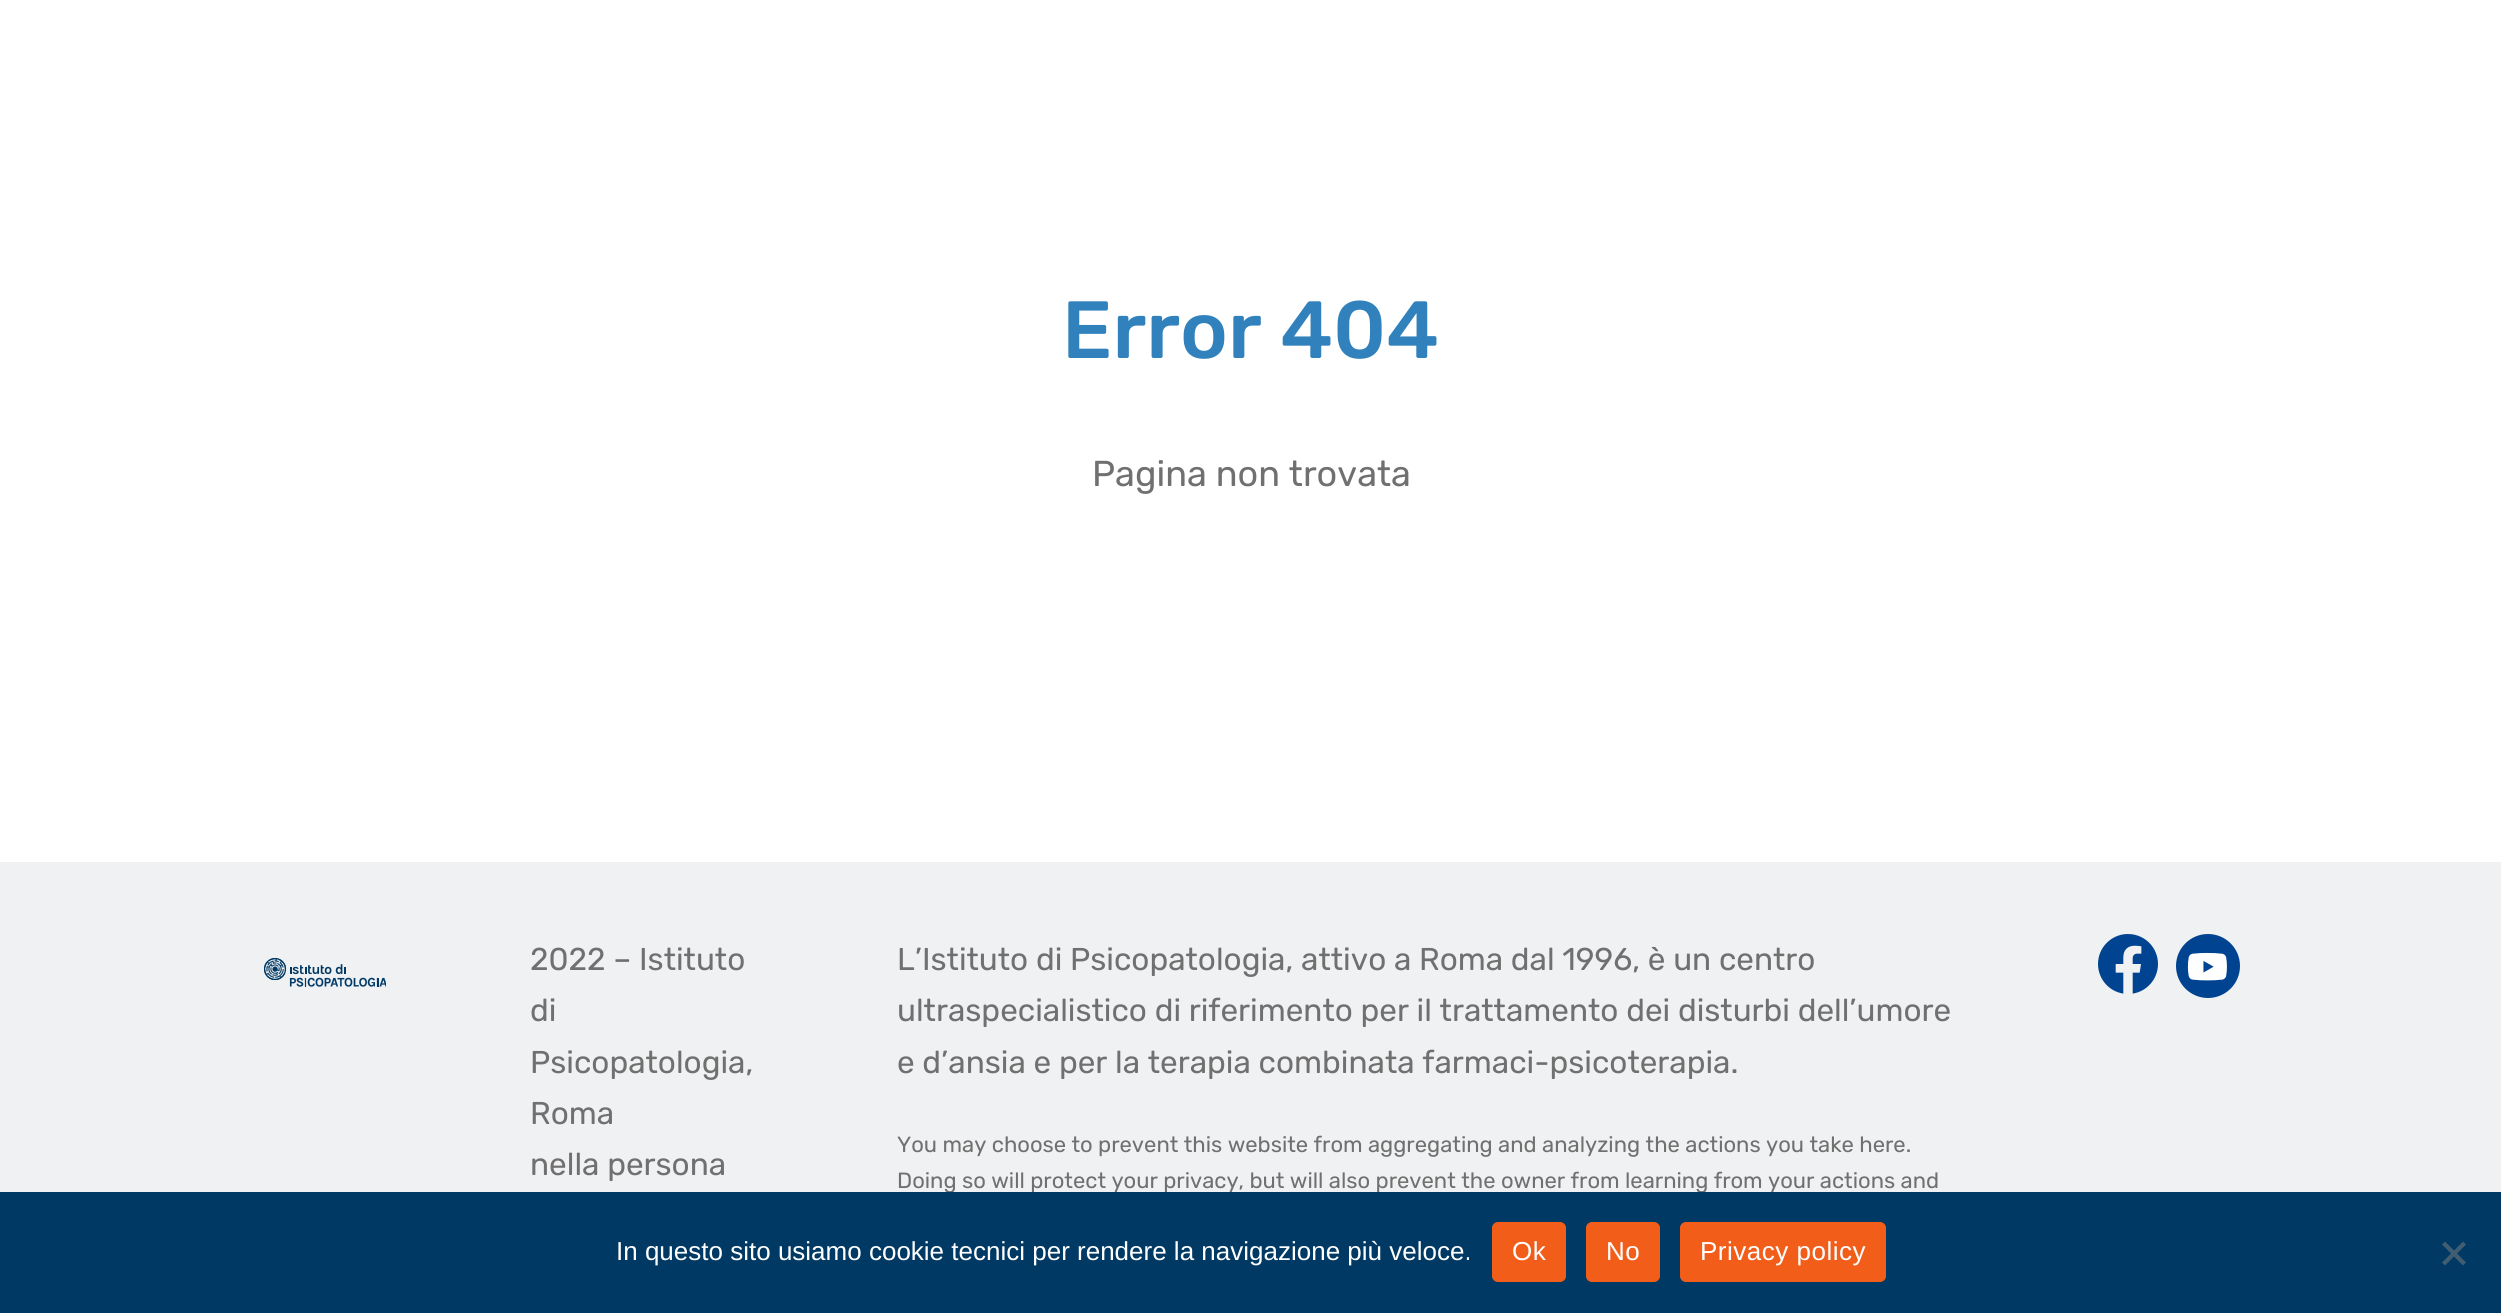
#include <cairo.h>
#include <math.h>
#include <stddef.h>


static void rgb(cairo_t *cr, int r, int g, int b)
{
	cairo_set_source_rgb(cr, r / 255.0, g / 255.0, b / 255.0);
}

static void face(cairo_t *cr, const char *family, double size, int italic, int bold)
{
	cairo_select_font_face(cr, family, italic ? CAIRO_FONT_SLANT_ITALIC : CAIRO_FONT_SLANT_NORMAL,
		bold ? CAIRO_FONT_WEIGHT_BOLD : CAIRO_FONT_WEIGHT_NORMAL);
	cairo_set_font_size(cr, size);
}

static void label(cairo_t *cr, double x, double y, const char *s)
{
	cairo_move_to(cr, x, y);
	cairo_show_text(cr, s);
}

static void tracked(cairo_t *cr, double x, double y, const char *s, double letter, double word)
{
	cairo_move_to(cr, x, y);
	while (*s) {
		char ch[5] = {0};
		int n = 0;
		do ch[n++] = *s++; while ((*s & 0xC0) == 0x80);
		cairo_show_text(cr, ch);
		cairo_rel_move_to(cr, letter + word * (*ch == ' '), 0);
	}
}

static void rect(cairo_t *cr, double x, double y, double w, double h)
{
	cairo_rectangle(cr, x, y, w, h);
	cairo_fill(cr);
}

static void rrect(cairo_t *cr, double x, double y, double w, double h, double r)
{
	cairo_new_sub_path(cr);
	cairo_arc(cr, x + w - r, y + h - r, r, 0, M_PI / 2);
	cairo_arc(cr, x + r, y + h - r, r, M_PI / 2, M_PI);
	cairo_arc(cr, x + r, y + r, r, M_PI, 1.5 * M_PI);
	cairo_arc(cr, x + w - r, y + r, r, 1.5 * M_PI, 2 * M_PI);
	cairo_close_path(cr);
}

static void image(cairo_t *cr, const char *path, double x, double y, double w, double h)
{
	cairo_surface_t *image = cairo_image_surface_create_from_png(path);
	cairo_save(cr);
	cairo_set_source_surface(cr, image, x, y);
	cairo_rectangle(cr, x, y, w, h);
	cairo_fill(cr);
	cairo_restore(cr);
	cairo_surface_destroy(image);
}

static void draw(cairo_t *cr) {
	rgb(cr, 255, 255, 255);
	cairo_paint(cr);
	face(cr, "Rubik Medium", 81, 0, 0);
	rgb(cr, 49, 130, 188);
	label(cr, 1062, 358, "Error 404");
	face(cr, "Rubik", 36, 0, 0);
	rgb(cr, 112, 112, 112);
	label(cr, 1092, 486, "Pagina non trovata");
	rgb(cr, 240, 241, 242);
	rect(cr, 0, 862, 2501, 330);
	image(cr, "image0.png", 264, 957, 122, 30);
	face(cr, "Rubik", 31.5, 0, 0);
	rgb(cr, 112, 112, 112);
	label(cr, 530, 970, "2022 – Istituto");
	label(cr, 530, 1021, "di");
	label(cr, 530, 1073, "Psicopatologia,");
	label(cr, 530, 1124, "Roma");
	label(cr, 530, 1175, "nella persona");
	label(cr, 897, 970, "L’Istituto di Psicopatologia, attivo a Roma dal 1996, è un centro");
	label(cr, 897, 1021, "ultraspecialistico di riferimento per il trattamento dei disturbi dell’umore");
	label(cr, 897, 1073, "e d’ansia e per la terapia combinata farmaci-psicoterapia.");
	face(cr, "Rubik", 22, 0, 0);
	label(cr, 897, 1152, "You may choose to prevent this website from aggregating and analyzing the actions you take here.");
	label(cr, 897, 1188, "Doing so will protect your privacy, but will also prevent the owner from learning from your actions and");
	image(cr, "image1.png", 2098, 934, 60, 60);
	image(cr, "image2.png", 2176, 934, 64, 64);
	rgb(cr, 0, 57, 100);
	rect(cr, 0, 1192, 2501, 121);
	face(cr, "Liberation Sans", 26, 0, 0);
	rgb(cr, 255, 255, 255);
	label(cr, 616, 1260, "In questo sito usiamo cookie tecnici per rendere la navigazione più veloce.");
	rgb(cr, 242, 94, 26);
	rrect(cr, 1492, 1222, 74, 60, 6);
	cairo_fill(cr);
	rgb(cr, 255, 255, 255);
	tracked(cr, 1512, 1260, "Ok", 0.5, 0);
	rgb(cr, 242, 94, 26);
	rrect(cr, 1586, 1222, 74, 60, 6);
	cairo_fill(cr);
	rgb(cr, 255, 255, 255);
	tracked(cr, 1606, 1260, "No", 0.5, 0);
	rgb(cr, 242, 94, 26);
	rrect(cr, 1680, 1222, 206, 60, 6);
	cairo_fill(cr);
	rgb(cr, 255, 255, 255);
	tracked(cr, 1700, 1260, "Privacy policy", 0.5, 0);
	rgb(cr, 64, 93, 114);
	cairo_new_path(cr);
	cairo_move_to(cr, 2463, 1241.5);
	cairo_line_to(cr, 2466, 1244.5);
	cairo_line_to(cr, 2445, 1265.5);
	cairo_line_to(cr, 2442, 1262.5);
	cairo_close_path(cr);
	cairo_fill(cr);
	cairo_new_path(cr);
	cairo_move_to(cr, 2442, 1244.5);
	cairo_line_to(cr, 2445, 1241.5);
	cairo_line_to(cr, 2466, 1262.5);
	cairo_line_to(cr, 2463, 1265.5);
	cairo_close_path(cr);
	cairo_fill(cr);
}

int main(void) {
	cairo_surface_t *surface = cairo_image_surface_create(CAIRO_FORMAT_RGB24, 2501, 1313);
	cairo_t *cr = cairo_create(surface);
	cairo_font_options_t *options = cairo_font_options_create();
	cairo_font_options_set_hint_metrics(options, CAIRO_HINT_METRICS_OFF);
	cairo_font_options_set_hint_style(options, CAIRO_HINT_STYLE_NONE);
	cairo_set_font_options(cr, options);
	cairo_set_miter_limit(cr, 4);
	draw(cr);
	cairo_surface_write_to_png(surface, "render.png");
	cairo_font_options_destroy(options);
	cairo_destroy(cr);
	cairo_surface_destroy(surface);
	return 0;
}
